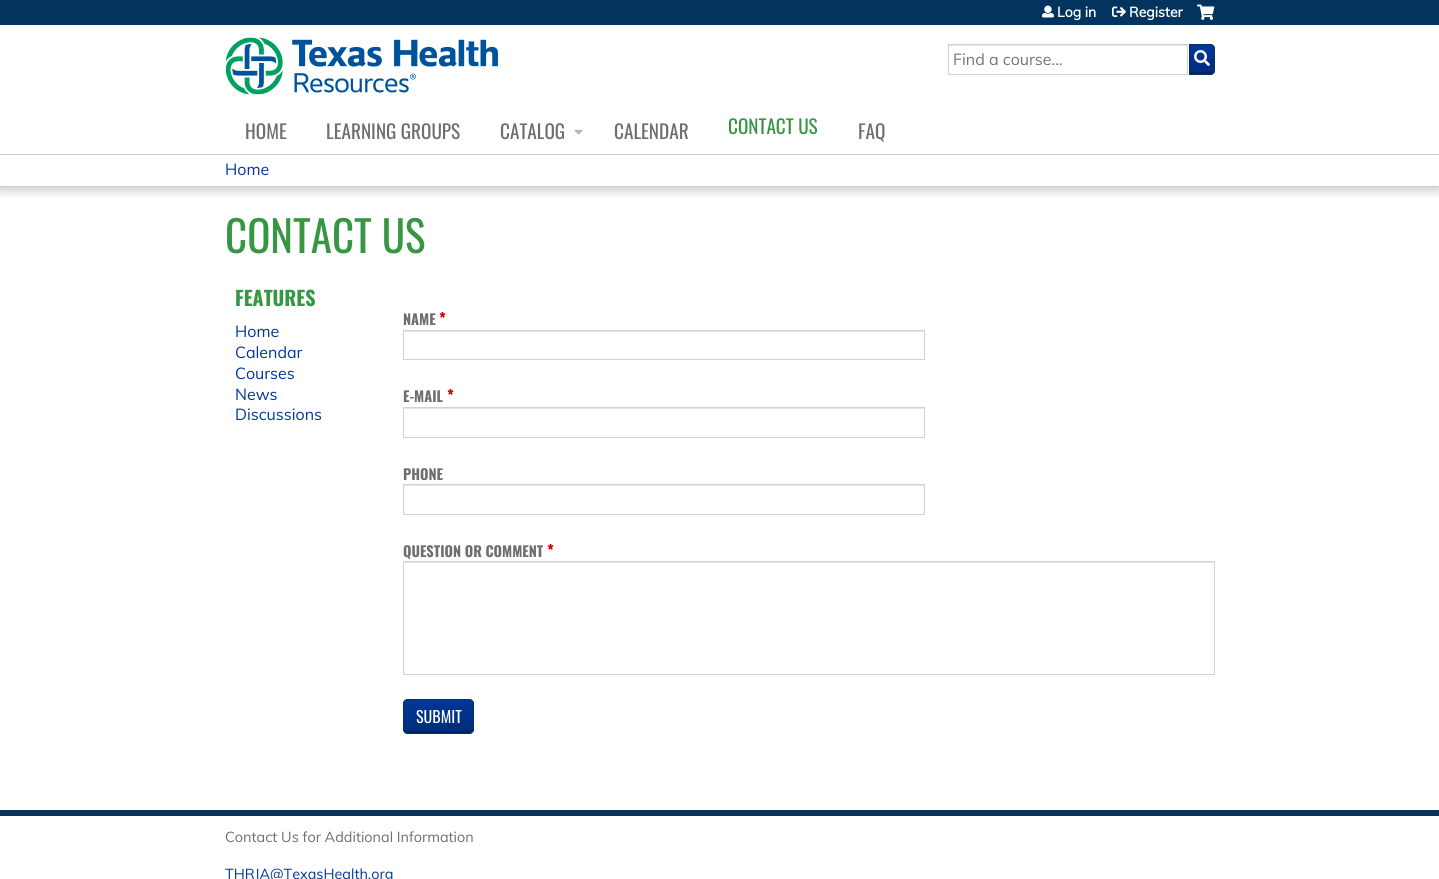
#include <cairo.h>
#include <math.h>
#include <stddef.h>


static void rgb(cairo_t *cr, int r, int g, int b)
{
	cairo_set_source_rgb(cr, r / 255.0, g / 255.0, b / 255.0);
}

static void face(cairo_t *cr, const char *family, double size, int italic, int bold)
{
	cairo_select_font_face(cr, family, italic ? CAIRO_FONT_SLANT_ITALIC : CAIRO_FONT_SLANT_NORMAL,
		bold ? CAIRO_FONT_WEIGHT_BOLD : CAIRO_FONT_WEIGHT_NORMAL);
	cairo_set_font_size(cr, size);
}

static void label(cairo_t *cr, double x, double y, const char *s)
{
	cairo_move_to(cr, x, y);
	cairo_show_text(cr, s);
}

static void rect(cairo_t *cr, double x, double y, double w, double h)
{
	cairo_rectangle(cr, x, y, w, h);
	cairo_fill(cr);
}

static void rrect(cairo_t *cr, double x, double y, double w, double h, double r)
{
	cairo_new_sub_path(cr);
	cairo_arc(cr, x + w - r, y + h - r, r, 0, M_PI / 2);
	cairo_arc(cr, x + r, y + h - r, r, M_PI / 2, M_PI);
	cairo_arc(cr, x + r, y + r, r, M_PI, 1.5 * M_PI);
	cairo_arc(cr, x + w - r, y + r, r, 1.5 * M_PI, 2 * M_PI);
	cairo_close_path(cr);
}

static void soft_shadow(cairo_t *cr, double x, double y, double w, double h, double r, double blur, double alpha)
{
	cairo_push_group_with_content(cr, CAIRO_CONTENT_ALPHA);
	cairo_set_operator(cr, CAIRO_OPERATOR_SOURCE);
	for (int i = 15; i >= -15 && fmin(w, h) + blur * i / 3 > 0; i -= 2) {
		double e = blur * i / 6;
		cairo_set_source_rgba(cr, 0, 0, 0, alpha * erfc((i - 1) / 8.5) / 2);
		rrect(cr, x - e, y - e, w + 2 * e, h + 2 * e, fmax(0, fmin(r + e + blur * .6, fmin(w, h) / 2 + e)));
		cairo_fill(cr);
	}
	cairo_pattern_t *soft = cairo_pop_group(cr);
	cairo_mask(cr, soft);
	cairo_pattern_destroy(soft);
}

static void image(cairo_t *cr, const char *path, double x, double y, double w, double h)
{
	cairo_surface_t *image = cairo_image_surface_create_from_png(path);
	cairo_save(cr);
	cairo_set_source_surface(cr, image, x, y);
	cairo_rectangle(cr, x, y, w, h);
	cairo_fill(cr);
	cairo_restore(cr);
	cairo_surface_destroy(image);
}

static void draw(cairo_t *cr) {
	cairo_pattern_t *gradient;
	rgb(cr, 255, 255, 255);
	cairo_paint(cr);
	rgb(cr, 3, 51, 95);
	rect(cr, 0, 0, 1439, 25);
	image(cr, "image0.png", 225, 37, 273, 58);
	image(cr, "image1.png", 1042, 5, 12, 13);
	face(cr, "Muli", 14, 0, 1);
	rgb(cr, 255, 255, 255);
	label(cr, 1057, 17, "Log in");
	image(cr, "image2.png", 1112, 6, 14, 11);
	label(cr, 1129, 17, "Register");
	image(cr, "image3.png", 1197, 4, 18, 16);
	rgb(cr, 0, 55, 152);
	cairo_new_path(cr);
	cairo_move_to(cr, 1189, 44);
	cairo_line_to(cr, 1210, 44);
	cairo_curve_to(cr, 1213, 44, 1215, 46, 1215, 49);
	cairo_line_to(cr, 1215, 70);
	cairo_curve_to(cr, 1215, 73, 1213, 75, 1210, 75);
	cairo_line_to(cr, 1189, 75);
	cairo_close_path(cr);
	cairo_fill(cr);
	cairo_save(cr);
	cairo_new_path(cr);
	cairo_move_to(cr, 1189, 44);
	cairo_line_to(cr, 1210, 44);
	cairo_curve_to(cr, 1213, 44, 1215, 46, 1215, 49);
	cairo_line_to(cr, 1215, 70);
	cairo_curve_to(cr, 1215, 73, 1213, 75, 1210, 75);
	cairo_line_to(cr, 1189, 75);
	cairo_close_path(cr);
	cairo_clip(cr);
	gradient = cairo_pattern_create_linear(1202, 74, 1202, 45);
	cairo_pattern_add_color_stop_rgba(gradient, 0, 0, 0, 0, 0.2);
	cairo_pattern_add_color_stop_rgba(gradient, 1, 0, 0, 0, 0);
	cairo_set_source(cr, gradient);
	cairo_pattern_destroy(gradient);
	rect(cr, 1190, 48, 25, 26);
	cairo_restore(cr);
	rgb(cr, 0, 36, 98);
	cairo_new_path(cr);
	cairo_move_to(cr, 1190, 72);
	cairo_line_to(cr, 1190, 74);
	cairo_line_to(cr, 1210, 74);
	cairo_curve_to(cr, 1212, 74, 1214, 72, 1214, 70);
	cairo_curve_to(cr, 1213, 71.5, 1210.5, 72, 1207, 72);
	cairo_close_path(cr);
	cairo_fill(cr);
	cairo_new_path(cr);
	cairo_move_to(cr, 1189.5, 44.5);
	cairo_line_to(cr, 1210, 44.5);
	cairo_curve_to(cr, 1212.5, 44.5, 1214.5, 46.5, 1214.5, 49);
	cairo_line_to(cr, 1214.5, 70);
	cairo_curve_to(cr, 1214.5, 72.5, 1212.5, 74.5, 1210, 74.5);
	cairo_line_to(cr, 1189.5, 74.5);
	cairo_close_path(cr);
	rgb(cr, 3, 51, 95);
	cairo_set_line_width(cr, 1);
	cairo_stroke(cr);
	rgb(cr, 230, 230, 230);
	rect(cr, 949, 45, 238, 1);
	cairo_rectangle(cr, 948.5, 44.5, 239, 30);
	rgb(cr, 209, 209, 209);
	cairo_stroke(cr);
	face(cr, "Muli", 16, 0, 0);
	rgb(cr, 117, 117, 117);
	label(cr, 953, 65, "Find a course...");
	image(cr, "image4.png", 1194, 50, 16, 16);
	cairo_save(cr);
	cairo_rectangle(cr, 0, 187, 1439, 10);
	cairo_clip(cr);
	rgb(cr, 0, 0, 0);
	soft_shadow(cr, -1, 156, 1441, 35, 0, 5, 0.2);
	cairo_restore(cr);
	rgb(cr, 255, 255, 255);
	rect(cr, 0, 148, 1439, 6);
	face(cr, "Oswald", 19.25, 0, 0);
	rgb(cr, 110, 110, 110);
	label(cr, 245, 139, "HOME");
	label(cr, 326, 139, "LEARNING GROUPS");
	label(cr, 500, 139, "CATALOG");
	image(cr, "image5.png", 574, 129, 9, 6);
	label(cr, 614, 139, "CALENDAR");
	rgb(cr, 55, 150, 67);
	label(cr, 728, 134, "CONTACT US");
	rgb(cr, 110, 110, 110);
	label(cr, 858, 139, "FAQ");
	rgb(cr, 204, 204, 204);
	rect(cr, 0, 154, 1439, 1);
	rect(cr, 0, 186, 1439, 1);
	face(cr, "Muli", 16, 0, 0);
	rgb(cr, 0, 55, 152);
	label(cr, 225, 175, "Home");
	face(cr, "Oswald", 43, 0, 0);
	rgb(cr, 55, 150, 67);
	label(cr, 225, 253, "CONTACT US");
	face(cr, "Oswald", 20, 0, 1);
	label(cr, 235, 306, "FEATURES");
	face(cr, "Muli", 16, 0, 0);
	rgb(cr, 0, 55, 152);
	label(cr, 235, 337, "Home");
	label(cr, 235, 358, "Calendar");
	label(cr, 235, 379, "Courses");
	label(cr, 235, 400, "News");
	label(cr, 235, 420, "Discussions");
	face(cr, "Oswald", 14.4, 0, 1);
	rgb(cr, 110, 110, 110);
	label(cr, 403, 325, "NAME");
	face(cr, "Oswald", 16, 0, 1);
	rgb(cr, 204, 0, 0);
	label(cr, 439, 325, "*");
	rgb(cr, 230, 230, 230);
	rect(cr, 404, 331, 520, 1);
	cairo_rectangle(cr, 403.5, 330.5, 521, 29);
	rgb(cr, 209, 209, 209);
	cairo_stroke(cr);
	face(cr, "Oswald", 14.4, 0, 1);
	rgb(cr, 110, 110, 110);
	label(cr, 403, 402, "E-MAIL");
	face(cr, "Oswald", 16, 0, 1);
	rgb(cr, 204, 0, 0);
	label(cr, 447, 402, "*");
	rgb(cr, 230, 230, 230);
	rect(cr, 404, 408, 520, 1);
	cairo_rectangle(cr, 403.5, 407.5, 521, 30);
	rgb(cr, 209, 209, 209);
	cairo_stroke(cr);
	face(cr, "Oswald", 14.4, 0, 1);
	rgb(cr, 110, 110, 110);
	label(cr, 403, 480, "PHONE");
	rgb(cr, 230, 230, 230);
	rect(cr, 404, 485, 520, 1);
	cairo_rectangle(cr, 403.5, 484.5, 521, 30);
	rgb(cr, 209, 209, 209);
	cairo_stroke(cr);
	rgb(cr, 110, 110, 110);
	label(cr, 403, 557, "QUESTION OR COMMENT");
	face(cr, "Oswald", 16, 0, 1);
	rgb(cr, 204, 0, 0);
	label(cr, 547, 557, "*");
	rgb(cr, 230, 230, 230);
	rect(cr, 404, 562, 810, 1);
	cairo_rectangle(cr, 403.5, 561.5, 811, 113);
	rgb(cr, 209, 209, 209);
	cairo_stroke(cr);
	rgb(cr, 0, 55, 152);
	rrect(cr, 403, 699, 71, 35, 5);
	cairo_fill(cr);
	cairo_save(cr);
	rrect(cr, 403, 699, 71, 35, 5);
	cairo_clip(cr);
	gradient = cairo_pattern_create_linear(439, 733, 439, 700);
	cairo_pattern_add_color_stop_rgba(gradient, 0, 0, 0, 0, 0.2);
	cairo_pattern_add_color_stop_rgba(gradient, 1, 0, 0, 0, 0);
	cairo_set_source(cr, gradient);
	cairo_pattern_destroy(gradient);
	rect(cr, 403, 704, 71, 29);
	cairo_restore(cr);
	rgb(cr, 0, 35, 98);
	cairo_new_path(cr);
	cairo_move_to(cr, 404, 729);
	cairo_curve_to(cr, 404, 731, 406, 733, 408, 733);
	cairo_line_to(cr, 469, 733);
	cairo_curve_to(cr, 471, 733, 473, 731, 473, 729);
	cairo_curve_to(cr, 472, 730, 471, 731, 469, 731);
	cairo_line_to(cr, 408, 731);
	cairo_curve_to(cr, 406, 731, 405, 730, 404, 729);
	cairo_close_path(cr);
	cairo_fill(cr);
	rrect(cr, 403.5, 699.5, 70, 34, 4.5);
	rgb(cr, 3, 51, 95);
	cairo_stroke(cr);
	face(cr, "Oswald", 16, 0, 0);
	rgb(cr, 255, 255, 255);
	label(cr, 416, 723, "SUBMIT");
	rgb(cr, 3, 51, 95);
	rect(cr, 0, 810, 1439, 6);
	face(cr, "Muli", 14.4, 0, 0);
	rgb(cr, 110, 110, 110);
	label(cr, 225, 842, "Contact Us for Additional Information");
	rgb(cr, 0, 55, 152);
	label(cr, 225, 879, "THRJA@TexasHealth.org");
}

int main(void) {
	cairo_surface_t *surface = cairo_image_surface_create(CAIRO_FORMAT_RGB24, 1439, 879);
	cairo_t *cr = cairo_create(surface);
	cairo_font_options_t *options = cairo_font_options_create();
	cairo_font_options_set_hint_metrics(options, CAIRO_HINT_METRICS_OFF);
	cairo_font_options_set_hint_style(options, CAIRO_HINT_STYLE_NONE);
	cairo_set_font_options(cr, options);
	cairo_set_miter_limit(cr, 4);
	draw(cr);
	cairo_surface_write_to_png(surface, "render.png");
	cairo_font_options_destroy(options);
	cairo_destroy(cr);
	cairo_surface_destroy(surface);
	return 0;
}
